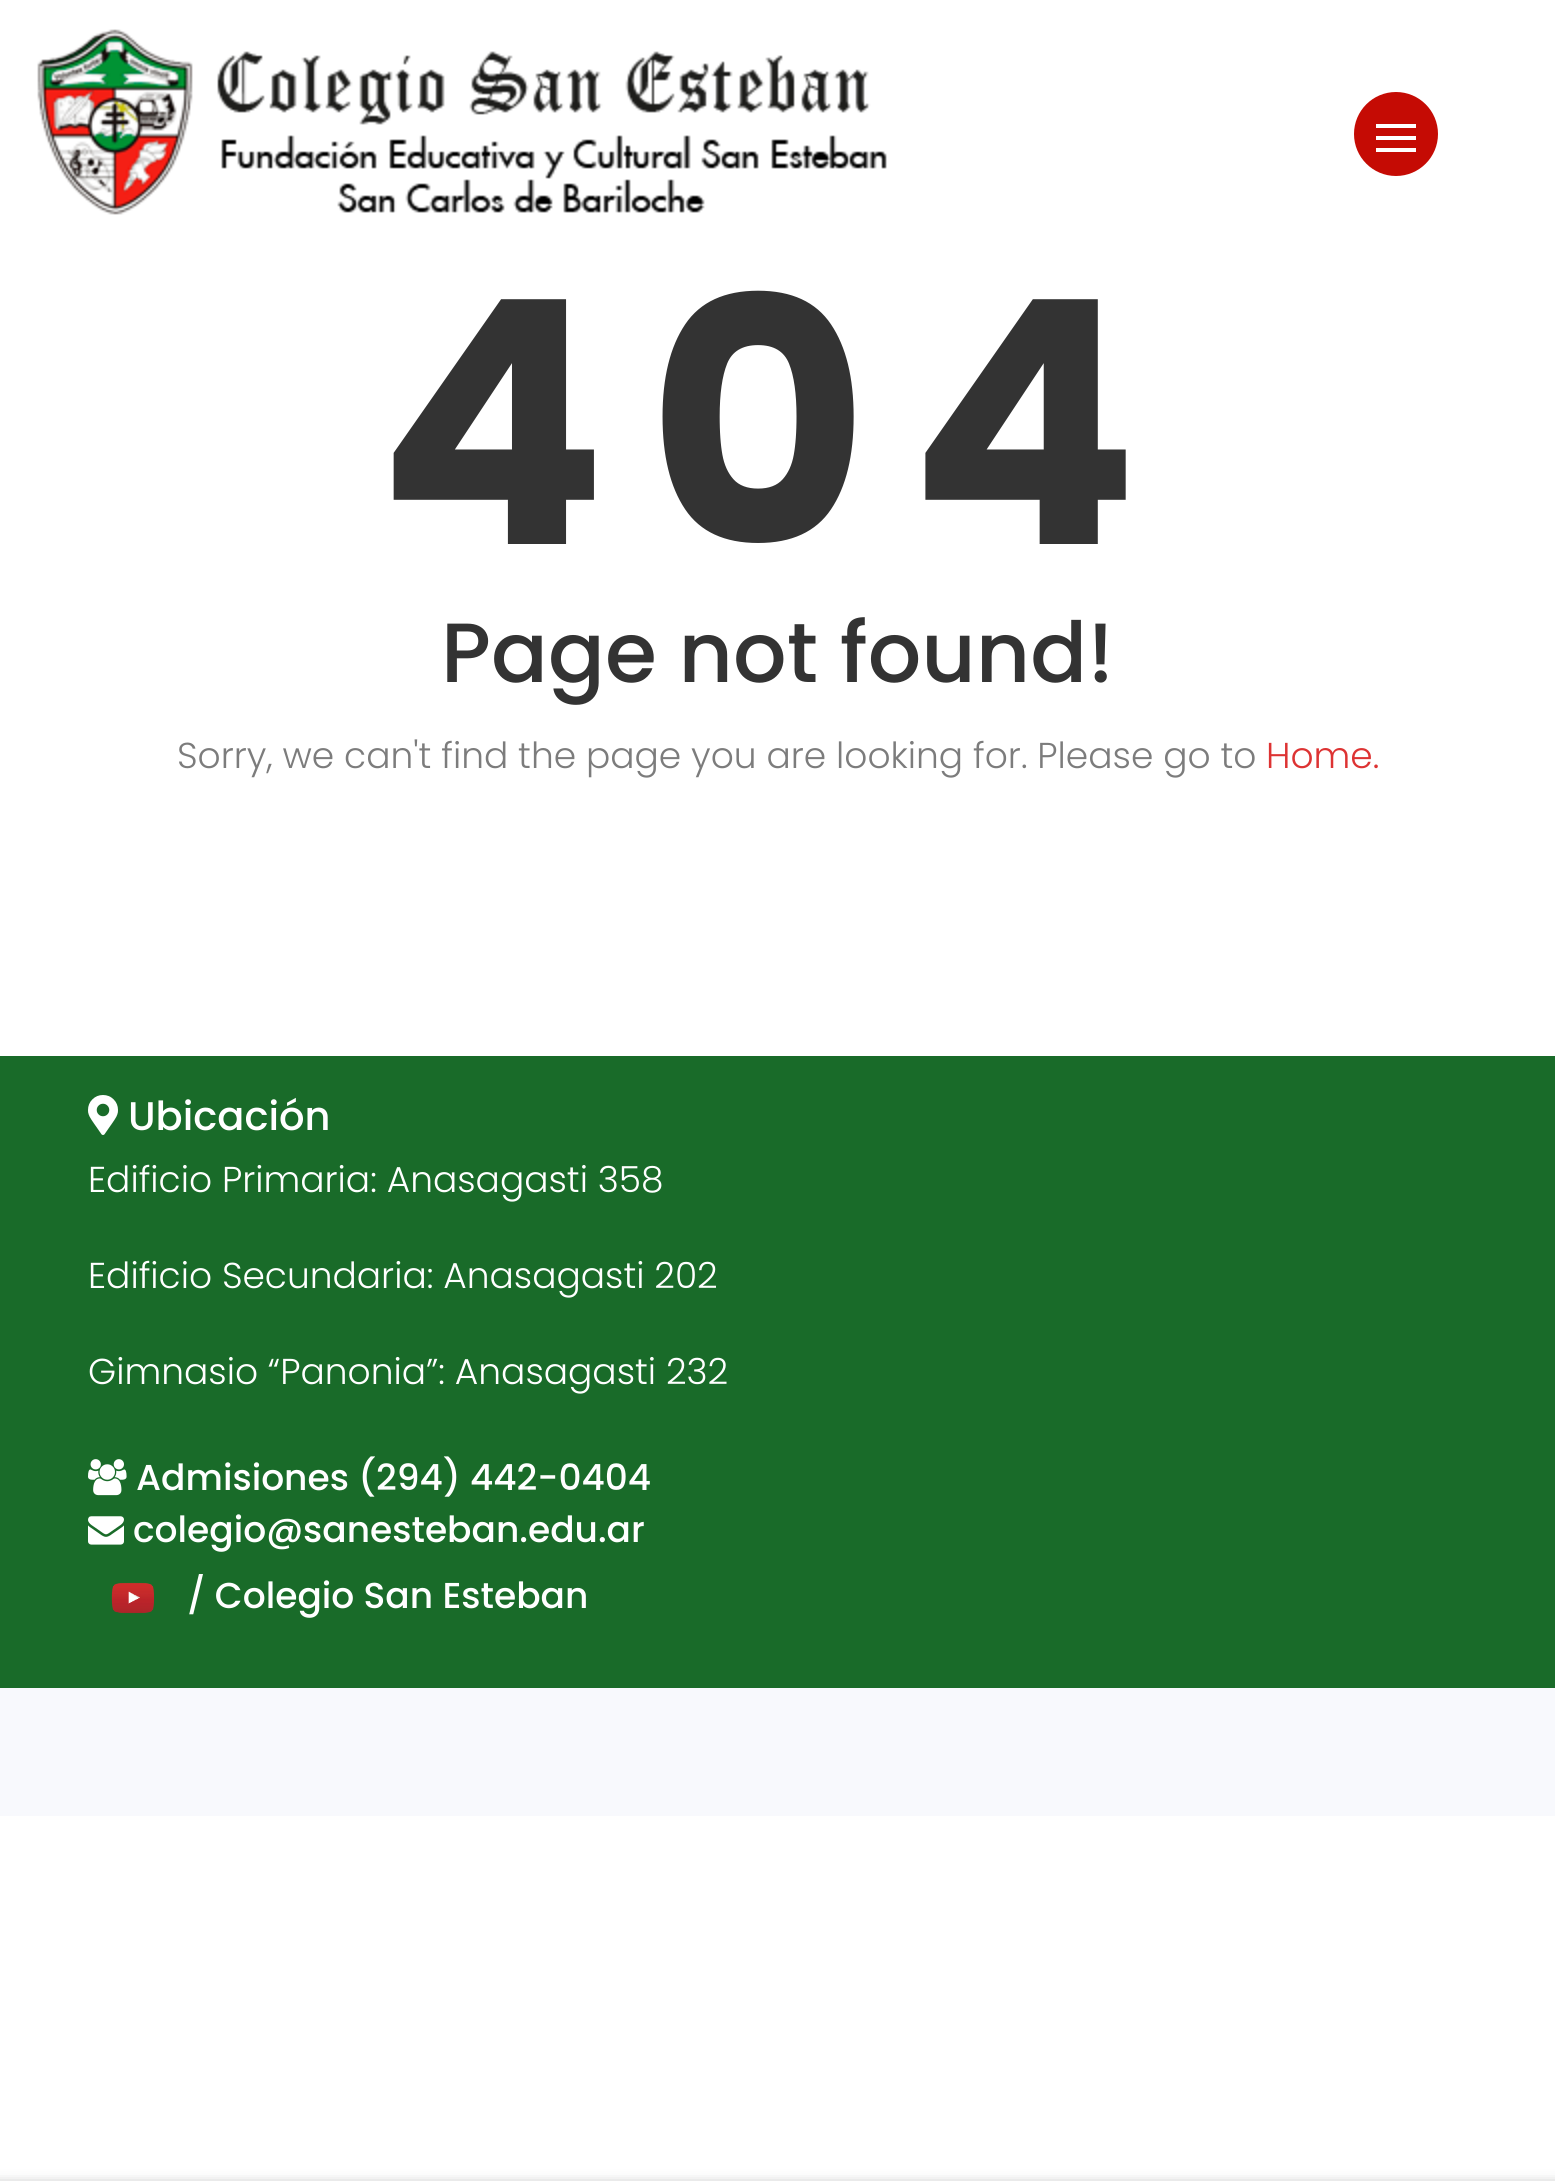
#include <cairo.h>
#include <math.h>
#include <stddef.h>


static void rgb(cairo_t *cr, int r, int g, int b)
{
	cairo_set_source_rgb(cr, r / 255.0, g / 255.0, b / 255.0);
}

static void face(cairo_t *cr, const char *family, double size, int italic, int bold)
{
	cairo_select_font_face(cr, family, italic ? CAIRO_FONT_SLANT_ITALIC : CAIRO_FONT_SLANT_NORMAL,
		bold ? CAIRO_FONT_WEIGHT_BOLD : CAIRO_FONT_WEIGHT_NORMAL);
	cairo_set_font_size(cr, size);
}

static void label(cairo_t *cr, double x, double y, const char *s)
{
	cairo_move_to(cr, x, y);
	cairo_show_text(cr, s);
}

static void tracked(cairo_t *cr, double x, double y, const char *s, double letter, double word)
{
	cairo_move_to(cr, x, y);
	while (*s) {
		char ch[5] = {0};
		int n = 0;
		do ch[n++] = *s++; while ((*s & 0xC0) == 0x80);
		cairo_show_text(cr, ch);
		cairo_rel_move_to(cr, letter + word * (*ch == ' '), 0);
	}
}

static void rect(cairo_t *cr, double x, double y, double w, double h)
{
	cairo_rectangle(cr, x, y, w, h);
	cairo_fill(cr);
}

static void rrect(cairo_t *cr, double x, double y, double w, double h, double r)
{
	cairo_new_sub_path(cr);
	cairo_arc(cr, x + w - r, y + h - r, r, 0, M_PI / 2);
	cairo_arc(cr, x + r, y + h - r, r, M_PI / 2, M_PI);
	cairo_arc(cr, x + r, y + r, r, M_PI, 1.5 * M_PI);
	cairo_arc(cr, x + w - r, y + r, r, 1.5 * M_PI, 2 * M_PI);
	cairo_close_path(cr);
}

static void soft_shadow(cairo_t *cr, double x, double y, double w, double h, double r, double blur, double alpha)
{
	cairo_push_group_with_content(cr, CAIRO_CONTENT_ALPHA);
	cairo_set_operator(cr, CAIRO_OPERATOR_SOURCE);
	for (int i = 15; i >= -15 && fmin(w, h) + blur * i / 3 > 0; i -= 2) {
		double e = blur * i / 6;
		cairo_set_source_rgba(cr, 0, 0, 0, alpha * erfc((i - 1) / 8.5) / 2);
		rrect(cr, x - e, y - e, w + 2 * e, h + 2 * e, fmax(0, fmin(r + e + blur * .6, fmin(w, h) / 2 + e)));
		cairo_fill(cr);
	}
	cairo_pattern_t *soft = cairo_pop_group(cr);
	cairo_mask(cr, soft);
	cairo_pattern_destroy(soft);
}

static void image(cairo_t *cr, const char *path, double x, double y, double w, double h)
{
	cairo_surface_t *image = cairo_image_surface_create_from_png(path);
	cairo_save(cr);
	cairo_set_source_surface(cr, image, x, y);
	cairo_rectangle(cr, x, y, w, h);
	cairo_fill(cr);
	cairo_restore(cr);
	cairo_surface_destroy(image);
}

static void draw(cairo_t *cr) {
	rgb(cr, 255, 255, 255);
	cairo_paint(cr);
	image(cr, "image0.png", 37, 29, 850, 186);
	rgb(cr, 197, 11, 4);
	cairo_arc(cr, 1396, 134, 42, 0, 2 * M_PI);
	cairo_fill(cr);
	rgb(cr, 255, 255, 255);
	cairo_new_path(cr);
	cairo_move_to(cr, 1376, 140);
	cairo_line_to(cr, 1376, 136);
	cairo_line_to(cr, 1416, 136);
	cairo_line_to(cr, 1416, 140);
	cairo_close_path(cr);
	cairo_move_to(cr, 1376, 128);
	cairo_line_to(cr, 1376, 124);
	cairo_line_to(cr, 1416, 124);
	cairo_line_to(cr, 1416, 128);
	cairo_close_path(cr);
	cairo_move_to(cr, 1376, 152);
	cairo_line_to(cr, 1376, 148);
	cairo_line_to(cr, 1416, 148);
	cairo_line_to(cr, 1416, 152);
	cairo_close_path(cr);
	cairo_fill(cr);
	face(cr, "Poppins", 340, 0, 1);
	rgb(cr, 51, 51, 51);
	tracked(cr, 377, 544, "404", 40, 0);
	face(cr, "Poppins Medium", 84, 0, 0);
	label(cr, 441, 682, "Page not found!");
	face(cr, "Poppins Light", 36, 0, 0);
	rgb(cr, 124, 124, 124);
	label(cr, 177, 768, "Sorry, we can't find the page you are looking for. Please go to");
	rgb(cr, 221, 51, 51);
	label(cr, 1266, 768, "Home.");
	rgb(cr, 25, 107, 41);
	rect(cr, 0, 1056, 1555, 632);
	image(cr, "image1.png", 88, 1095, 30, 40);
	face(cr, "Poppins Medium", 40, 0, 0);
	rgb(cr, 255, 255, 255);
	label(cr, 128, 1130, "Ubicación");
	face(cr, "Poppins Light", 36, 0, 0);
	label(cr, 88, 1192, "Edificio Primaria: Anasagasti 358");
	label(cr, 88, 1288, "Edificio Secundaria: Anasagasti 202");
	label(cr, 88, 1384, "Gimnasio “Panonia”: Anasagasti 232");
	image(cr, "image2.png", 88, 1459, 39, 37);
	face(cr, "Poppins Medium", 36, 0, 0);
	label(cr, 136, 1490, "Admisiones (294) 442-0404");
	image(cr, "image3.png", 88, 1516, 36, 29);
	label(cr, 133, 1542, "colegio@sanesteban.edu.ar");
	image(cr, "image4.png", 111, 1582, 44, 32);
	label(cr, 187, 1608, "/ Colegio San Esteban");
	rgb(cr, 248, 249, 253);
	rect(cr, 0, 1688, 1555, 128);
	rgb(cr, 42, 42, 42);
	soft_shadow(cr, -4, 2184, 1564, 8, 0, 6, 0.4);
}

int main(void) {
	cairo_surface_t *surface = cairo_image_surface_create(CAIRO_FORMAT_RGB24, 1555, 2181);
	cairo_t *cr = cairo_create(surface);
	cairo_font_options_t *options = cairo_font_options_create();
	cairo_font_options_set_hint_metrics(options, CAIRO_HINT_METRICS_OFF);
	cairo_font_options_set_hint_style(options, CAIRO_HINT_STYLE_NONE);
	cairo_set_font_options(cr, options);
	cairo_set_miter_limit(cr, 4);
	draw(cr);
	cairo_surface_write_to_png(surface, "render.png");
	cairo_font_options_destroy(options);
	cairo_destroy(cr);
	cairo_surface_destroy(surface);
	return 0;
}
